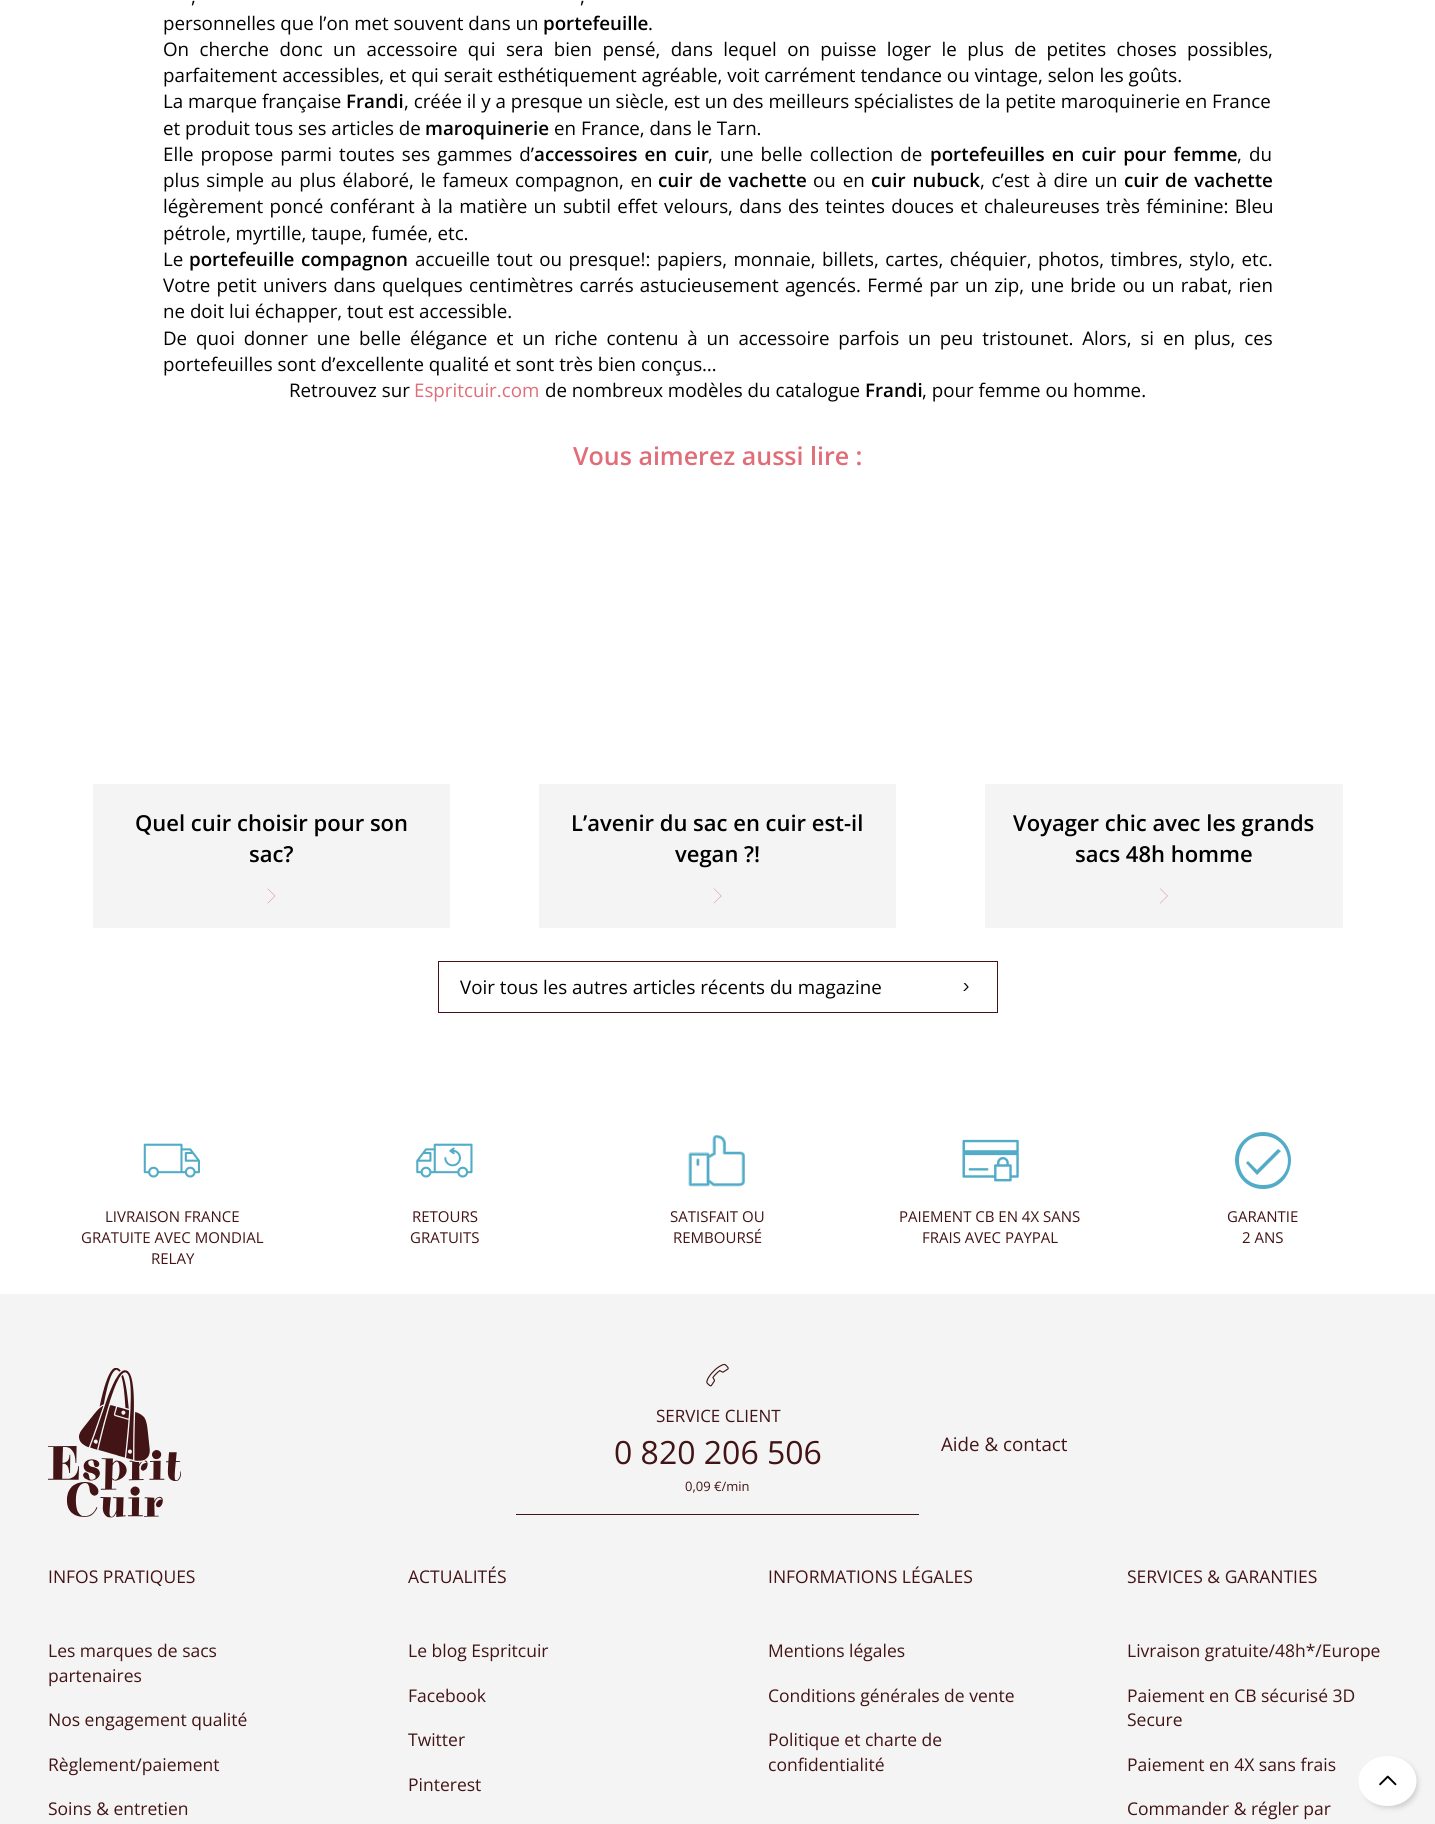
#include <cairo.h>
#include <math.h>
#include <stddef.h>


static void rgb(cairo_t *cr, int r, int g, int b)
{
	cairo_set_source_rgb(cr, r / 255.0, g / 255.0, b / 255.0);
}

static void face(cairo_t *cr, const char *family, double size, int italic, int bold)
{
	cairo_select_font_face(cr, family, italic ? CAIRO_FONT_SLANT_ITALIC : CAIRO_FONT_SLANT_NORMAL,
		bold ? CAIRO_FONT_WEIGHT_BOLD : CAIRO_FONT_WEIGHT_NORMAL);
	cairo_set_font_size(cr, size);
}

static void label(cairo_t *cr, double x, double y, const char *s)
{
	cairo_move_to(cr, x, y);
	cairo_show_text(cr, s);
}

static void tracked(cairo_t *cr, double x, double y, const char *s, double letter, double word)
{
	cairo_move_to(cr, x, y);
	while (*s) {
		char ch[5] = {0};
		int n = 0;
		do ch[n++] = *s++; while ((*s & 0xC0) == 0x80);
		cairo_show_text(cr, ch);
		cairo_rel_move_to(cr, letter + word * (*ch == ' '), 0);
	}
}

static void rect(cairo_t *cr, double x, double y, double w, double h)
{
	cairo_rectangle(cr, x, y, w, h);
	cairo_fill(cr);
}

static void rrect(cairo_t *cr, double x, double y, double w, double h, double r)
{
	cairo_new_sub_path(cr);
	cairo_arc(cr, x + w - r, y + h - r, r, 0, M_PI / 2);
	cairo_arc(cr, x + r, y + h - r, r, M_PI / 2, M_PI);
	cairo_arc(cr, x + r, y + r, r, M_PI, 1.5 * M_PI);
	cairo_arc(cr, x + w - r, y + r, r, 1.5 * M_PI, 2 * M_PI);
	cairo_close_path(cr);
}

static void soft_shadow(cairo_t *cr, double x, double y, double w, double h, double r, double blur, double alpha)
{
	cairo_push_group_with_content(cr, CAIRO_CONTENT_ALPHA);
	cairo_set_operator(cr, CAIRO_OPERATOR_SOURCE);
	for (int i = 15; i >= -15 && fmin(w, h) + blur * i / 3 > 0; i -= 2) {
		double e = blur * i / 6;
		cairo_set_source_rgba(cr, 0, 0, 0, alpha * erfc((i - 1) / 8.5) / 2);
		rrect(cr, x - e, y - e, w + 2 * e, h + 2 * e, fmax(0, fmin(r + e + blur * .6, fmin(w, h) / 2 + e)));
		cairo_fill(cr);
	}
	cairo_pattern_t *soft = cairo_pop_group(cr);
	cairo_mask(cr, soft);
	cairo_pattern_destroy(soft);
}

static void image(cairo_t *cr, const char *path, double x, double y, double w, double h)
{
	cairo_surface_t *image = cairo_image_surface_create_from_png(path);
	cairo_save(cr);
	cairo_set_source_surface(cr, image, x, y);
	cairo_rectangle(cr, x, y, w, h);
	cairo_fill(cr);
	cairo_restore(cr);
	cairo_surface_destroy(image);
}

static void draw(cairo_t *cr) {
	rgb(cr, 255, 255, 255);
	cairo_paint(cr);
	face(cr, "Open Sans", 18.75, 0, 0);
	rgb(cr, 0, 0, 0);
	tracked(cr, 191, 3, ",", 0, 2);
	tracked(cr, 580, 3, ",", 0, 2);
	label(cr, 163, 30, "personnelles que l’on met souvent dans un");
	face(cr, "Open Sans SemiBold", 18.75, 0, 0);
	label(cr, 543, 30, "portefeuille");
	face(cr, "Open Sans", 18.75, 0, 0);
	label(cr, 648, 30, ".");
	tracked(cr, 163, 56, "On cherche donc un accessoire qui sera bien pensé, dans lequel on puisse loger le plus de petites choses possibles,", 0, 5.5);
	label(cr, 163, 82, "parfaitement accessibles, et qui serait esthétiquement agréable, voit carrément tendance ou vintage, selon les goûts.");
	label(cr, 163, 108, "La marque française");
	face(cr, "Open Sans SemiBold", 18.75, 0, 0);
	label(cr, 346, 108, "Frandi");
	face(cr, "Open Sans", 18.75, 0, 0);
	label(cr, 404, 108, ", créée il y a presque un siècle, est un des meilleurs spécialistes de la petite maroquinerie en France");
	label(cr, 163, 135, "et produit tous ses articles de");
	face(cr, "Open Sans SemiBold", 18.75, 0, 0);
	label(cr, 425, 135, "maroquinerie");
	face(cr, "Open Sans", 18.75, 0, 0);
	label(cr, 554, 135, "en France, dans le Tarn.");
	tracked(cr, 163, 161, "Elle propose parmi toutes ses gammes d’", 0, 2.25);
	face(cr, "Open Sans SemiBold", 18.75, 0, 0);
	tracked(cr, 534, 161, "accessoires en cuir", 0, 2.25);
	face(cr, "Open Sans", 18.75, 0, 0);
	tracked(cr, 708, 161, ", une belle collection de", 0, 2.25);
	face(cr, "Open Sans SemiBold", 18.75, 0, 0);
	tracked(cr, 930, 161, "portefeuilles en cuir pour femme", 0, 2.25);
	face(cr, "Open Sans", 18.75, 0, 0);
	tracked(cr, 1237, 161, ", du", 0, 2.25);
	tracked(cr, 163, 187, "plus simple au plus élaboré, le fameux compagnon, en", 0, 1.75);
	face(cr, "Open Sans SemiBold", 18.75, 0, 0);
	tracked(cr, 658, 187, "cuir de vachette", 0, 1.75);
	face(cr, "Open Sans", 18.75, 0, 0);
	tracked(cr, 813, 187, "ou en", 0, 2);
	face(cr, "Open Sans SemiBold", 18.75, 0, 0);
	tracked(cr, 871, 187, "cuir nubuck", 0, 2);
	face(cr, "Open Sans", 18.75, 0, 0);
	tracked(cr, 980, 187, ", c’est à dire un", 0, 1.75);
	face(cr, "Open Sans SemiBold", 18.75, 0, 0);
	label(cr, 1124, 187, "cuir");
	tracked(cr, 1165, 187, "de vachette", 0, 2);
	face(cr, "Open Sans", 18.75, 0, 0);
	tracked(cr, 163, 213, "légèrement poncé conférant à la matière un subtil effet velours, dans des teintes douces et chaleureuses très féminine: Bleu", 0, 1.5);
	label(cr, 163, 240, "pétrole, myrtille, taupe, fumée, etc.");
	label(cr, 163, 266, "Le");
	face(cr, "Open Sans SemiBold", 18.75, 0, 0);
	label(cr, 189, 266, "portefeuille");
	label(cr, 301, 266, "compagnon");
	face(cr, "Open Sans", 18.75, 0, 0);
	tracked(cr, 415, 266, "accueille tout ou presque!: papiers, monnaie, billets, cartes, chéquier, photos, timbres, stylo, etc.", 0, 1.6);
	tracked(cr, 163, 292, "Votre petit univers dans quelques centimètres carrés astucieusement agencés. Fermé par un zip, une bride ou un rabat, rien", 0, 1.4);
	label(cr, 163, 318, "ne doit lui échapper, tout est accessible.");
	tracked(cr, 163, 345, "De quoi donner une belle élégance et un riche contenu à un accessoire parfois un peu tristounet. Alors, si en plus, ces", 0, 4);
	label(cr, 163, 371, "portefeuilles sont d’excellente qualité et sont très bien conçus…");
	label(cr, 289, 397, "Retrouvez sur");
	rgb(cr, 224, 109, 119);
	label(cr, 414, 397, "Espritcuir.com");
	rgb(cr, 0, 0, 0);
	label(cr, 545, 397, "de nombreux modèles du catalogue");
	face(cr, "Open Sans SemiBold", 18.75, 0, 0);
	label(cr, 865, 397, "Frandi");
	face(cr, "Open Sans", 18.75, 0, 0);
	label(cr, 922, 397, ", pour femme ou homme.");
	face(cr, "Open Sans SemiBold", 25, 0, 0);
	rgb(cr, 224, 109, 119);
	label(cr, 573, 465, "Vous aimerez aussi lire :");
	rgb(cr, 244, 244, 244);
	rect(cr, 93, 784, 357, 144);
	face(cr, "Open Sans SemiBold", 22, 0, 0);
	rgb(cr, 0, 0, 0);
	label(cr, 135, 831, "Quel cuir choisir pour son");
	label(cr, 249, 862, "sac?");
	image(cr, "image0.png", 267, 888, 9, 16);
	rgb(cr, 244, 244, 244);
	rect(cr, 539, 784, 357, 144);
	rgb(cr, 0, 0, 0);
	label(cr, 571, 831, "L’avenir du sac en cuir est-il");
	label(cr, 675, 862, "vegan ?!");
	image(cr, "image1.png", 713, 888, 9, 16);
	rgb(cr, 244, 244, 244);
	rect(cr, 985, 784, 358, 144);
	rgb(cr, 0, 0, 0);
	label(cr, 1013, 831, "Voyager chic avec les grands");
	label(cr, 1075, 862, "sacs 48h homme");
	image(cr, "image2.png", 1160, 888, 8, 16);
	cairo_rectangle(cr, 438.5, 961.5, 559, 51);
	rgb(cr, 67, 20, 21);
	cairo_set_line_width(cr, 1);
	cairo_stroke(cr);
	face(cr, "Open Sans", 18.75, 0, 0);
	rgb(cr, 0, 0, 0);
	label(cr, 460, 994, "Voir tous les autres articles récents du magazine");
	cairo_save(cr);
	cairo_rectangle(cr, 963, 983, 6, 8);
	cairo_clip(cr);
	cairo_new_path(cr);
	cairo_move_to(cr, 963.5, 982);
	cairo_line_to(cr, 968, 987);
	cairo_line_to(cr, 963.5, 991.5);
	cairo_set_line_width(cr, 1.2);
	cairo_set_line_cap(cr, CAIRO_LINE_CAP_ROUND);
	cairo_set_line_join(cr, CAIRO_LINE_JOIN_ROUND);
	cairo_stroke(cr);
	cairo_restore(cr);
	image(cr, "image3.png", 143, 1143, 57, 35);
	face(cr, "Open Sans", 15, 0, 0);
	rgb(cr, 67, 20, 21);
	label(cr, 105, 1222, "LIVRAISON FRANCE");
	label(cr, 81, 1243, "GRATUITE AVEC MONDIAL");
	label(cr, 151, 1264, "RELAY");
	image(cr, "image4.png", 416, 1143, 57, 35);
	label(cr, 412, 1222, "RETOURS");
	label(cr, 410, 1243, "GRATUITS");
	image(cr, "image5.png", 688, 1135, 57, 52);
	label(cr, 670, 1222, "SATISFAIT OU");
	label(cr, 673, 1243, "REMBOURSÉ");
	image(cr, "image6.png", 962, 1139, 57, 43);
	label(cr, 899, 1222, "PAIEMENT CB EN 4X SANS");
	label(cr, 922, 1243, "FRAIS AVEC PAYPAL");
	rgb(cr, 83, 172, 199);
	cairo_new_path(cr);
	cairo_move_to(cr, 1263, 1132);
	cairo_curve_to(cr, 1257, 1132, 1251, 1134, 1246, 1138);
	cairo_curve_to(cr, 1225, 1154, 1236, 1189, 1263, 1189);
	cairo_curve_to(cr, 1290, 1189, 1301, 1154, 1280, 1138);
	cairo_curve_to(cr, 1275, 1134, 1269, 1132, 1263, 1132);
	cairo_close_path(cr);
	cairo_move_to(cr, 1263, 1185);
	cairo_curve_to(cr, 1231, 1185, 1231, 1136, 1263, 1136);
	cairo_curve_to(cr, 1287, 1136, 1297, 1166, 1278, 1180);
	cairo_curve_to(cr, 1274, 1184, 1268, 1185, 1263, 1185);
	cairo_close_path(cr);
	cairo_move_to(cr, 1278, 1149);
	cairo_line_to(cr, 1257, 1170);
	cairo_line_to(cr, 1248, 1161);
	cairo_line_to(cr, 1246, 1163);
	cairo_line_to(cr, 1257, 1175);
	cairo_line_to(cr, 1281, 1151);
	cairo_close_path(cr);
	cairo_fill(cr);
	rgb(cr, 67, 20, 21);
	label(cr, 1227, 1222, "GARANTIE");
	label(cr, 1242, 1243, "2 ANS");
	rgb(cr, 244, 244, 244);
	rect(cr, 0, 1294, 1435, 530);
	image(cr, "image7.png", 48, 1368, 133, 150);
	image(cr, "image8.png", 706, 1363, 23, 24);
	face(cr, "Open Sans", 17, 0, 0);
	rgb(cr, 67, 20, 21);
	label(cr, 656, 1422, "SERVICE CLIENT");
	face(cr, "Open Sans", 32, 0, 0);
	label(cr, 614, 1464, "0 820 206 506");
	face(cr, "Open Sans", 13, 0, 0);
	label(cr, 685, 1491, "0,09 €/min");
	rect(cr, 516, 1514, 403, 1);
	face(cr, "Open Sans", 18.75, 0, 0);
	label(cr, 941, 1451, "Aide & contact");
	face(cr, "Open Sans", 17.5, 0, 0);
	label(cr, 48, 1583, "INFOS PRATIQUES");
	label(cr, 48, 1657, "Les marques de sacs");
	label(cr, 48, 1682, "partenaires");
	label(cr, 48, 1726, "Nos engagement qualité");
	label(cr, 48, 1771, "Règlement/paiement");
	label(cr, 48, 1815, "Soins & entretien");
	label(cr, 408, 1583, "ACTUALITÉS");
	label(cr, 408, 1657, "Le blog Espritcuir");
	label(cr, 408, 1702, "Facebook");
	label(cr, 408, 1746, "Twitter");
	label(cr, 408, 1791, "Pinterest");
	label(cr, 768, 1583, "INFORMATIONS LÉGALES");
	label(cr, 768, 1657, "Mentions légales");
	label(cr, 768, 1702, "Conditions générales de vente");
	label(cr, 768, 1746, "Politique et charte de");
	label(cr, 768, 1771, "confidentialité");
	label(cr, 1127, 1583, "SERVICES & GARANTIES");
	label(cr, 1127, 1657, "Livraison gratuite/48h*/Europe");
	label(cr, 1127, 1702, "Paiement en CB sécurisé 3D");
	label(cr, 1127, 1726, "Secure");
	label(cr, 1127, 1771, "Paiement en 4X sans frais");
	label(cr, 1127, 1815, "Commander & régler par");
	rgb(cr, 208, 208, 208);
	soft_shadow(cr, 1363, 1760, 55, 48, 24, 2.5, 1);
	rgb(cr, 255, 255, 255);
	cairo_new_path(cr);
	cairo_move_to(cr, 1387.5, 1756);
	cairo_curve_to(cr, 1403.5, 1756, 1416.5, 1767, 1416.5, 1781);
	cairo_curve_to(cr, 1416.5, 1795, 1403.5, 1806, 1387.5, 1806);
	cairo_curve_to(cr, 1371.5, 1806, 1358.5, 1795, 1358.5, 1781);
	cairo_curve_to(cr, 1358.5, 1767, 1371.5, 1756, 1387.5, 1756);
	cairo_close_path(cr);
	cairo_fill(cr);
	image(cr, "image9.png", 1379, 1775, 18, 11);
}

int main(void) {
	cairo_surface_t *surface = cairo_image_surface_create(CAIRO_FORMAT_RGB24, 1435, 1824);
	cairo_t *cr = cairo_create(surface);
	cairo_font_options_t *options = cairo_font_options_create();
	cairo_font_options_set_hint_metrics(options, CAIRO_HINT_METRICS_OFF);
	cairo_font_options_set_hint_style(options, CAIRO_HINT_STYLE_NONE);
	cairo_set_font_options(cr, options);
	cairo_set_miter_limit(cr, 4);
	draw(cr);
	cairo_surface_write_to_png(surface, "render.png");
	cairo_font_options_destroy(options);
	cairo_destroy(cr);
	cairo_surface_destroy(surface);
	return 0;
}
